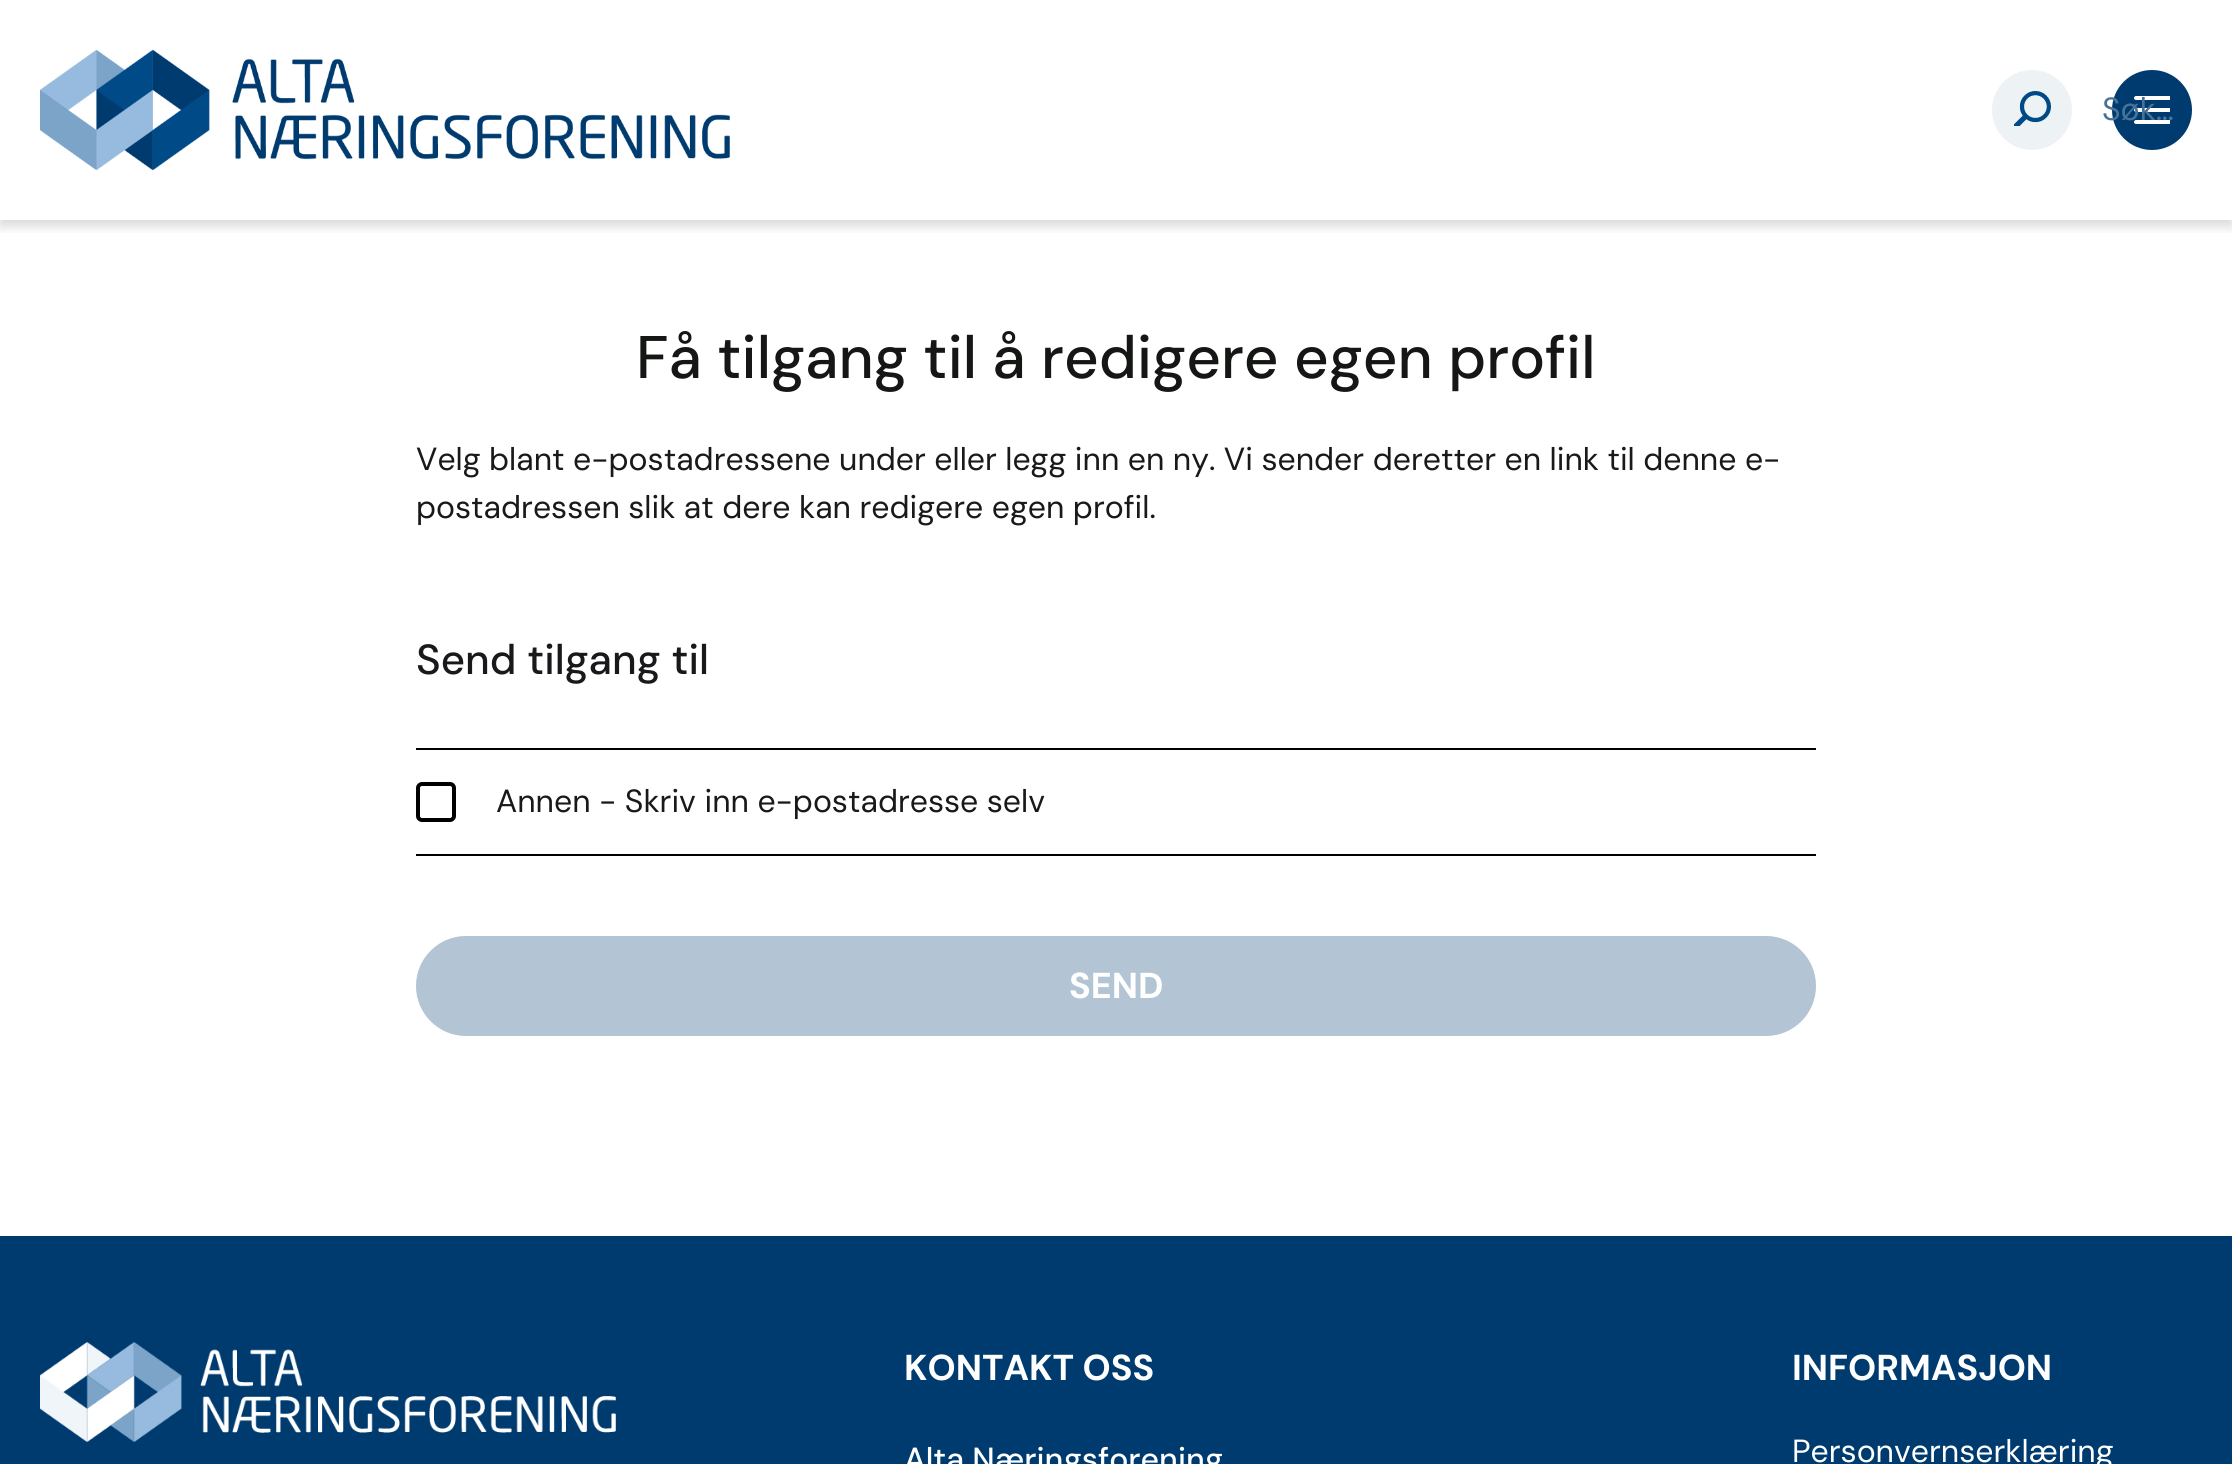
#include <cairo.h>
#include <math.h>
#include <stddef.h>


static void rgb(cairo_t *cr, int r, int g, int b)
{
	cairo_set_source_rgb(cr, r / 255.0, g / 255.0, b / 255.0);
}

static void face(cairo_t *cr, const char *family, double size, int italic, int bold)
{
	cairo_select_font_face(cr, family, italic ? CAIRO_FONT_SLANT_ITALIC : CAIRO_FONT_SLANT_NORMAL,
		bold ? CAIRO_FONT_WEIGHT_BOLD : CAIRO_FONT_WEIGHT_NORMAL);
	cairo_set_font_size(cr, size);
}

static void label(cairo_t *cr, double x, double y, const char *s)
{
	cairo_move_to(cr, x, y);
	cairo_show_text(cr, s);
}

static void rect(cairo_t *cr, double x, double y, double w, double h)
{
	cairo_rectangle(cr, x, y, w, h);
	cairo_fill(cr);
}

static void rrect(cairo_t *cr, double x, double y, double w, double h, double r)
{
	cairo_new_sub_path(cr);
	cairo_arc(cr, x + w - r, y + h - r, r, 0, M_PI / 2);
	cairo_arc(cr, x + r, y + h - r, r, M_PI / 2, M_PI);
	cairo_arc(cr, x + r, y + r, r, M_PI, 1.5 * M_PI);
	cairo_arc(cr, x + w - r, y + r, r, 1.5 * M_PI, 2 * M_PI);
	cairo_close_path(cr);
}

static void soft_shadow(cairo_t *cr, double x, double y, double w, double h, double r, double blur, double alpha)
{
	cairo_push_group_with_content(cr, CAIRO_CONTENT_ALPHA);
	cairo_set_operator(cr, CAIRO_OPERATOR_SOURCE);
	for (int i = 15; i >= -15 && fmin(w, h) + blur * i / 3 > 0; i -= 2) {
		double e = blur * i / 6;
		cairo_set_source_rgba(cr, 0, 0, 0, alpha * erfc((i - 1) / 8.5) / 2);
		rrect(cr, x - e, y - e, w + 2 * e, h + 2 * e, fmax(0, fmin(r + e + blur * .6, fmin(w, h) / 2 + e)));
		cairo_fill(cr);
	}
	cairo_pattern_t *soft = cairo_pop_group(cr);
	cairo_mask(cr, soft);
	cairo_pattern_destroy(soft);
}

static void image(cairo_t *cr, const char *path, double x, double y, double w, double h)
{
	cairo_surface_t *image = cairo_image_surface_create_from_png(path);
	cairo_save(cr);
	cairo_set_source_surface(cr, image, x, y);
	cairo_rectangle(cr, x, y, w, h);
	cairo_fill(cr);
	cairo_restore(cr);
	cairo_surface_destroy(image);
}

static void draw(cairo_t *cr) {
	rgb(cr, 255, 255, 255);
	cairo_paint(cr);
	cairo_save(cr);
	cairo_rectangle(cr, 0, 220, 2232, 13);
	cairo_clip(cr);
	rgb(cr, 0, 0, 0);
	soft_shadow(cr, 0, 6, 2232, 220, 0, 6, 0.16);
	cairo_restore(cr);
	image(cr, "image0.png", 40, 50, 690, 120);
	rgb(cr, 237, 242, 245);
	cairo_arc(cr, 2032, 110, 40, 0, 2 * M_PI);
	cairo_fill(cr);
	image(cr, "image1.png", 2014, 91, 37, 35);
	rgb(cr, 0, 59, 111);
	cairo_arc(cr, 2152, 110, 40, 0, 2 * M_PI);
	cairo_fill(cr);
	image(cr, "image2.png", 2134, 96, 36, 28);
	face(cr, "DM Sans", 32, 0, 0);
	rgb(cr, 72, 114, 152);
	label(cr, 2102, 120, "Søk…");
	face(cr, "DM Sans Medium", 60, 0, 0);
	rgb(cr, 21, 23, 21);
	label(cr, 636, 378, "Få tilgang til å redigere egen profil");
	face(cr, "DM Sans", 32, 0, 0);
	rgb(cr, 25, 25, 28);
	label(cr, 416, 470, "Velg blant e-postadressene under eller legg inn en ny. Vi sender deretter en link til denne e-");
	label(cr, 416, 518, "postadressen slik at dere kan redigere egen profil.");
	face(cr, "DM Sans Medium", 42, 0, 0);
	label(cr, 416, 674, "Send tilgang til");
	rgb(cr, 0, 0, 0);
	rect(cr, 416, 748, 1400, 2);
	rect(cr, 416, 854, 1400, 2);
	rrect(cr, 418, 784, 36, 36, 4);
	cairo_set_line_width(cr, 4);
	cairo_stroke(cr);
	face(cr, "DM Sans", 32, 0, 0);
	rgb(cr, 25, 25, 28);
	label(cr, 496, 812, "Annen - Skriv inn e-postadresse selv");
	rgb(cr, 179, 197, 212);
	rrect(cr, 417, 937, 1398, 98, 49);
	cairo_fill_preserve(cr);
	rgb(cr, 179, 196, 212);
	cairo_set_line_width(cr, 2);
	cairo_stroke(cr);
	face(cr, "DM Sans", 36, 0, 1);
	rgb(cr, 255, 255, 255);
	label(cr, 1069, 998, "SEND");
	rgb(cr, 0, 59, 111);
	rect(cr, 0, 1236, 2232, 228);
	image(cr, "image3.png", 40, 1342, 576, 100);
	rgb(cr, 255, 255, 255);
	label(cr, 904, 1380, "KONTAKT OSS");
	face(cr, "DM Sans Medium", 32, 0, 0);
	label(cr, 904, 1470, "Alta Næringsforening");
	face(cr, "DM Sans", 36, 0, 1);
	label(cr, 1792, 1380, "INFORMASJON");
	face(cr, "DM Sans", 32, 0, 0);
	label(cr, 1792, 1462, "Personvernserklæring");
}

int main(void) {
	cairo_surface_t *surface = cairo_image_surface_create(CAIRO_FORMAT_RGB24, 2232, 1464);
	cairo_t *cr = cairo_create(surface);
	cairo_font_options_t *options = cairo_font_options_create();
	cairo_font_options_set_hint_metrics(options, CAIRO_HINT_METRICS_OFF);
	cairo_font_options_set_hint_style(options, CAIRO_HINT_STYLE_NONE);
	cairo_set_font_options(cr, options);
	cairo_set_miter_limit(cr, 4);
	draw(cr);
	cairo_surface_write_to_png(surface, "render.png");
	cairo_font_options_destroy(options);
	cairo_destroy(cr);
	cairo_surface_destroy(surface);
	return 0;
}
